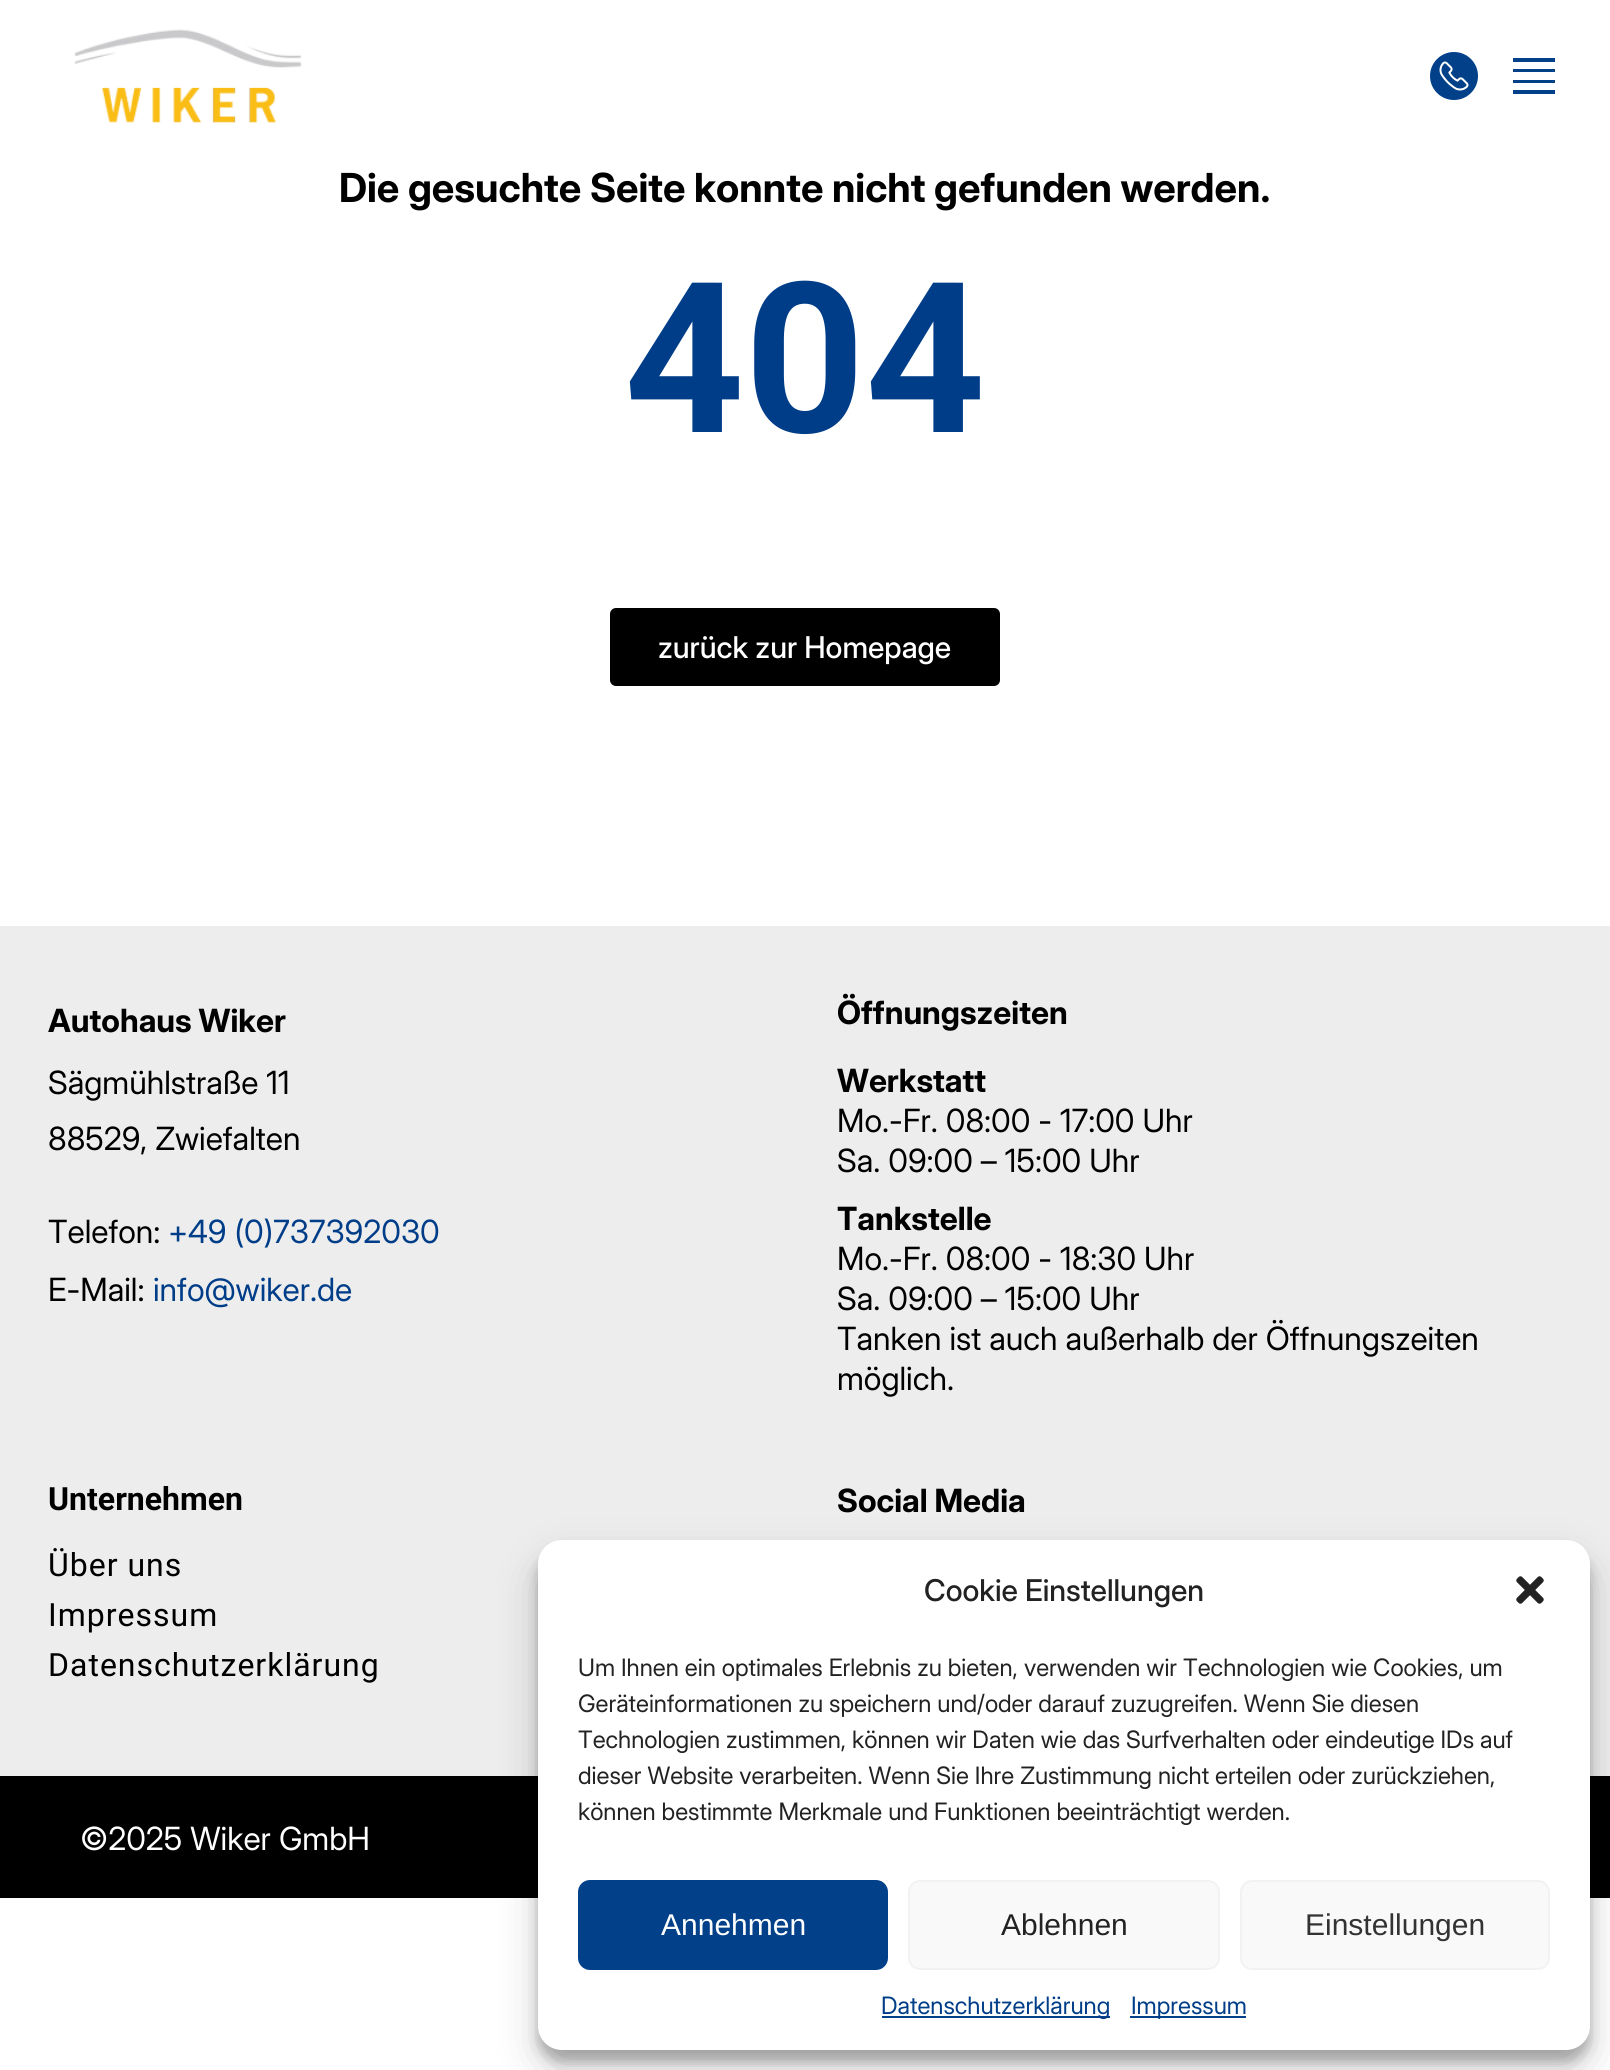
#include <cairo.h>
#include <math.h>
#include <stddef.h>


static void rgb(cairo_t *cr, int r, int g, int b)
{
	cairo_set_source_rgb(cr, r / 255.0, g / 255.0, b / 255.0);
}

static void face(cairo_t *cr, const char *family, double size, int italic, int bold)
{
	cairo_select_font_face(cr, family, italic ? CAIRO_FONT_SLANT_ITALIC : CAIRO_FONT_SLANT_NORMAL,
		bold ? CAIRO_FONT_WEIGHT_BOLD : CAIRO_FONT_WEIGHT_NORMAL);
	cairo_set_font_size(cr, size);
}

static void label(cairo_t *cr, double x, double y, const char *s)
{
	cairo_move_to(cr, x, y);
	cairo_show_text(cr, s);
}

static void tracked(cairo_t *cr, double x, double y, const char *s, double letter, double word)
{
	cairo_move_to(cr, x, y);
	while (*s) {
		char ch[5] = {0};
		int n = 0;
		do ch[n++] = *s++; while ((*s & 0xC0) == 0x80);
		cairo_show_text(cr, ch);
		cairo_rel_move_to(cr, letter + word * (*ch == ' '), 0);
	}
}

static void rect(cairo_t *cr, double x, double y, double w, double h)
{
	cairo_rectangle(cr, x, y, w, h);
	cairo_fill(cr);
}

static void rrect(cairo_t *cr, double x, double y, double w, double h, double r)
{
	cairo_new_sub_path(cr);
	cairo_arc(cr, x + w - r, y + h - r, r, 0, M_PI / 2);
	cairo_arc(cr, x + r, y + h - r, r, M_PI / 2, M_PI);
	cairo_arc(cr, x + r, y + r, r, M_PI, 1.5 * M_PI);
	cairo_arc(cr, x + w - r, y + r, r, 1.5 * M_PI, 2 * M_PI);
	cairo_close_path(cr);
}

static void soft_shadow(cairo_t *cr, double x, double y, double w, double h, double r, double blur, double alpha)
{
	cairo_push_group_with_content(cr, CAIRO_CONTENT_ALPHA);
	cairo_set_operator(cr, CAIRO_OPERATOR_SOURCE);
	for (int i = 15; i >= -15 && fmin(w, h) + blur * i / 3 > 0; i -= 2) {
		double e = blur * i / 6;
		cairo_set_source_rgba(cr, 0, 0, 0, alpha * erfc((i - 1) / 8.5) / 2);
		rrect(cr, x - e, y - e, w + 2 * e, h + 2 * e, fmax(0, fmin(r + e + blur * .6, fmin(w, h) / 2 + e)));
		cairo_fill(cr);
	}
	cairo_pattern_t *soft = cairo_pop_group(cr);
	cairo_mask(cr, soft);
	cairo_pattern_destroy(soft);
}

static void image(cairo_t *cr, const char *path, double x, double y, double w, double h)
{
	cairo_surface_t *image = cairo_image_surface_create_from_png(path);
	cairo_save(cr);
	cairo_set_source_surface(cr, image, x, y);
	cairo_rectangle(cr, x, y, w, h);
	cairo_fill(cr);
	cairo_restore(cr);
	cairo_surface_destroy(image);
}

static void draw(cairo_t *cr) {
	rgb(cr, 255, 255, 255);
	cairo_paint(cr);
	image(cr, "image0.png", 74, 29, 228, 94);
	image(cr, "image1.png", 1430, 52, 48, 48);
	rgb(cr, 2, 64, 137);
	rect(cr, 1513, 58, 42, 4);
	rect(cr, 1513, 69, 42, 3);
	rect(cr, 1513, 80, 42, 3);
	rect(cr, 1513, 90, 42, 4);
	face(cr, "Inter Display", 40, 0, 1);
	rgb(cr, 0, 0, 0);
	label(cr, 339, 202, "Die gesuchte Seite konnte nicht gefunden werden.");
	face(cr, "Roboto", 210, 0, 1);
	rgb(cr, 0, 61, 136);
	label(cr, 624, 432, "404");
	rgb(cr, 0, 0, 0);
	rrect(cr, 610, 608, 390, 78, 6);
	cairo_fill(cr);
	face(cr, "Inter Display Medium", 30, 0, 0);
	rgb(cr, 255, 255, 255);
	label(cr, 658, 658, "zurück zur Homepage");
	rgb(cr, 237, 237, 237);
	rect(cr, 0, 926, 1610, 850);
	face(cr, "Inter Display", 32, 0, 1);
	rgb(cr, 0, 0, 0);
	label(cr, 48, 1032, "Autohaus Wiker");
	face(cr, "Inter Display", 32, 0, 0);
	label(cr, 48, 1094, "Sägmühlstraße 11");
	label(cr, 48, 1150, "88529, Zwiefalten");
	label(cr, 48, 1243, "Telefon:");
	rgb(cr, 0, 61, 136);
	label(cr, 168, 1243, "+49 (0)737392030");
	rgb(cr, 0, 0, 0);
	label(cr, 48, 1301, "E-Mail:");
	rgb(cr, 0, 61, 136);
	label(cr, 153, 1301, "info@wiker.de");
	face(cr, "Inter Display", 32, 0, 1);
	rgb(cr, 0, 0, 0);
	label(cr, 837, 1024, "Öffnungszeiten");
	label(cr, 837, 1092, "Werkstatt");
	face(cr, "Inter Display", 32, 0, 0);
	label(cr, 837, 1132, "Mo.-Fr. 08:00 - 17:00 Uhr");
	label(cr, 837, 1172, "Sa. 09:00 – 15:00 Uhr");
	face(cr, "Inter Display", 32, 0, 1);
	label(cr, 837, 1230, "Tankstelle");
	face(cr, "Inter Display", 32, 0, 0);
	label(cr, 837, 1270, "Mo.-Fr. 08:00 - 18:30 Uhr");
	label(cr, 837, 1310, "Sa. 09:00 – 15:00 Uhr");
	label(cr, 837, 1350, "Tanken ist auch außerhalb der Öffnungszeiten");
	label(cr, 837, 1390, "möglich.");
	face(cr, "Roboto", 32, 0, 1);
	label(cr, 48, 1510, "Unternehmen");
	face(cr, "Roboto", 32, 0, 0);
	tracked(cr, 48, 1576, "Über uns", 1, 0);
	tracked(cr, 48, 1626, "Impressum", 1, 0);
	tracked(cr, 48, 1676, "Datenschutzerklärung", 1, 0);
	face(cr, "Inter Display", 32, 0, 1);
	label(cr, 837, 1512, "Social Media");
	rect(cr, 0, 1776, 1610, 122);
	face(cr, "Inter Display", 32, 0, 0);
	rgb(cr, 255, 255, 255);
	label(cr, 80, 1850, "©2025 Wiker GmbH");
	rgb(cr, 0, 0, 0);
	soft_shadow(cr, 538, 1552, 1052, 510, 24, 6, 0.23);
	soft_shadow(cr, 538, 1560, 1052, 510, 24, 20, 0.19);
	rgb(cr, 255, 255, 255);
	rrect(cr, 538, 1540, 1052, 510, 24);
	cairo_fill(cr);
	face(cr, "Inter Display Medium", 30, 0, 0);
	rgb(cr, 34, 34, 34);
	label(cr, 924, 1601, "Cookie Einstellungen");
	image(cr, "image2.png", 1516, 1576, 28, 28);
	face(cr, "Inter Display", 24, 0, 0);
	label(cr, 578, 1676, "Um Ihnen ein optimales Erlebnis zu bieten, verwenden wir Technologien wie Cookies, um");
	label(cr, 578, 1712, "Geräteinformationen zu speichern und/oder darauf zuzugreifen. Wenn Sie diesen");
	label(cr, 578, 1748, "Technologien zustimmen, können wir Daten wie das Surfverhalten oder eindeutige IDs auf");
	label(cr, 578, 1784, "dieser Website verarbeiten. Wenn Sie Ihre Zustimmung nicht erteilen oder zurückziehen,");
	label(cr, 578, 1820, "können bestimmte Merkmale und Funktionen beeinträchtigt werden.");
	rgb(cr, 2, 64, 137);
	rrect(cr, 579, 1881, 308, 88, 11);
	cairo_fill_preserve(cr);
	cairo_stroke(cr);
	face(cr, "Liberation Sans", 30, 0, 0);
	rgb(cr, 255, 255, 255);
	label(cr, 661, 1935, "Annehmen");
	rgb(cr, 249, 249, 249);
	rrect(cr, 909, 1881, 310, 88, 11);
	cairo_fill_preserve(cr);
	rgb(cr, 242, 242, 242);
	cairo_stroke(cr);
	rgb(cr, 34, 34, 34);
	label(cr, 1001, 1935, "Ablehnen");
	rgb(cr, 249, 249, 249);
	rrect(cr, 1241, 1881, 308, 88, 11);
	cairo_fill_preserve(cr);
	rgb(cr, 242, 242, 242);
	cairo_stroke(cr);
	rgb(cr, 51, 51, 51);
	label(cr, 1305, 1935, "Einstellungen");
	rgb(cr, 2, 64, 137);
	rect(cr, 882, 2016, 228, 2);
	face(cr, "Inter Display", 24, 0, 0);
	rgb(cr, 0, 61, 136);
	label(cr, 881, 2014, "Datenschutzerklärung");
	rgb(cr, 2, 64, 137);
	rect(cr, 1130, 2016, 116, 2);
	rgb(cr, 0, 61, 136);
	label(cr, 1131, 2014, "Impressum");
}

int main(void) {
	cairo_surface_t *surface = cairo_image_surface_create(CAIRO_FORMAT_RGB24, 1610, 2070);
	cairo_t *cr = cairo_create(surface);
	cairo_font_options_t *options = cairo_font_options_create();
	cairo_font_options_set_hint_metrics(options, CAIRO_HINT_METRICS_OFF);
	cairo_font_options_set_hint_style(options, CAIRO_HINT_STYLE_NONE);
	cairo_set_font_options(cr, options);
	cairo_set_miter_limit(cr, 4);
	draw(cr);
	cairo_surface_write_to_png(surface, "render.png");
	cairo_font_options_destroy(options);
	cairo_destroy(cr);
	cairo_surface_destroy(surface);
	return 0;
}
